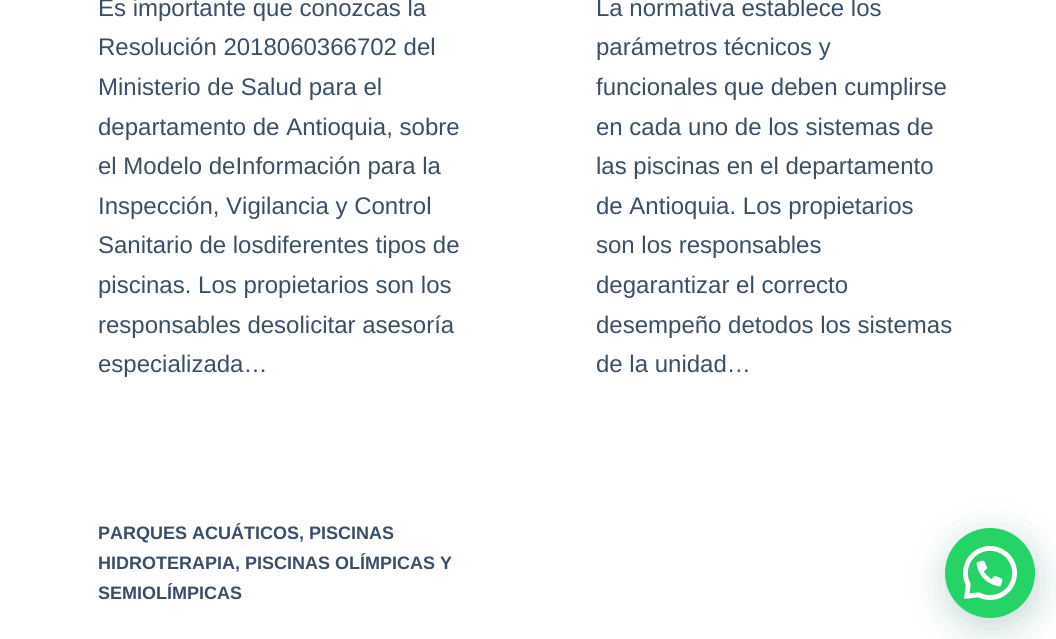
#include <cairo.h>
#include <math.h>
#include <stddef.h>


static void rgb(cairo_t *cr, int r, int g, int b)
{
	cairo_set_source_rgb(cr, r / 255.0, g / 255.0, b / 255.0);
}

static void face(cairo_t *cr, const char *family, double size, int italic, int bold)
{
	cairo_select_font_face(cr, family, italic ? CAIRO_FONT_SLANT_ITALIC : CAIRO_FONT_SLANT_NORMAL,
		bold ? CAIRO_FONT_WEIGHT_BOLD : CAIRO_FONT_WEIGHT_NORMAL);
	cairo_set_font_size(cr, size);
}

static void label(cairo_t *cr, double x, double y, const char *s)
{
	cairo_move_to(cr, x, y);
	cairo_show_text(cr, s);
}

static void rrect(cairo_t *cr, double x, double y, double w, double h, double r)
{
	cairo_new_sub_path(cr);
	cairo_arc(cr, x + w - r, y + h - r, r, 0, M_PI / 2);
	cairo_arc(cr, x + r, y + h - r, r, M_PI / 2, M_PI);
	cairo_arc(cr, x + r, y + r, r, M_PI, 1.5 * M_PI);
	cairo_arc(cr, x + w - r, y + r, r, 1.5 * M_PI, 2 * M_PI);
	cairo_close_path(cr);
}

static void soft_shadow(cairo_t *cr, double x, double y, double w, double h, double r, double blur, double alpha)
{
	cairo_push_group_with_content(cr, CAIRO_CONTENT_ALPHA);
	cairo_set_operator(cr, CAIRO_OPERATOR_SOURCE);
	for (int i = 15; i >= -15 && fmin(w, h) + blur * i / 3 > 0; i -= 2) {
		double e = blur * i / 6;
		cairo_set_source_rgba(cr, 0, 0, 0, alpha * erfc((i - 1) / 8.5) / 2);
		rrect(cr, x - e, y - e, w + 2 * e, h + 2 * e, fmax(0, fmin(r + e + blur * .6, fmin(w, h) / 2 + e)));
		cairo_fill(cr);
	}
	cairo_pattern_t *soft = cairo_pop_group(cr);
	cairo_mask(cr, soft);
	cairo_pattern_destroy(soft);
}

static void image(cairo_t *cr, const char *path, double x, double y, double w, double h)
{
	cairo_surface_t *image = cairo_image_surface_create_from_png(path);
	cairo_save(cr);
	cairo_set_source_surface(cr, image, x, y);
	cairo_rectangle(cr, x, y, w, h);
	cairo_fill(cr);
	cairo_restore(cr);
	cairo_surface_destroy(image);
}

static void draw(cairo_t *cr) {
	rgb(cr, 255, 255, 255);
	cairo_paint(cr);
	face(cr, "Liberation Sans", 24, 0, 0);
	rgb(cr, 58, 79, 102);
	label(cr, 98, 16, "Es importante que conozcas la");
	label(cr, 98, 55, "Resolución 2018060366702 del");
	label(cr, 98, 95, "Ministerio de Salud para el");
	label(cr, 98, 135, "departamento de Antioquia, sobre");
	label(cr, 98, 174, "el Modelo deInformación para la");
	label(cr, 98, 214, "Inspección, Vigilancia y Control");
	label(cr, 98, 253, "Sanitario de losdiferentes tipos de");
	label(cr, 98, 293, "piscinas. Los propietarios son los");
	label(cr, 98, 333, "responsables desolicitar asesoría");
	label(cr, 98, 372, "especializada…");
	label(cr, 596, 16, "La normativa establece los");
	label(cr, 596, 55, "parámetros técnicos y");
	label(cr, 596, 95, "funcionales que deben cumplirse");
	label(cr, 596, 135, "en cada uno de los sistemas de");
	label(cr, 596, 174, "las piscinas en el departamento");
	label(cr, 596, 214, "de Antioquia. Los propietarios");
	label(cr, 596, 253, "son los responsables");
	label(cr, 596, 293, "degarantizar el correcto");
	label(cr, 596, 333, "desempeño detodos los sistemas");
	label(cr, 596, 372, "de la unidad…");
	face(cr, "Liberation Sans", 18, 0, 1);
	label(cr, 98, 539, "PARQUES ACUÁTICOS, PISCINAS");
	label(cr, 98, 569, "HIDROTERAPIA, PISCINAS OLÍMPICAS Y");
	label(cr, 98, 599, "SEMIOLÍMPICAS");
	rgb(cr, 7, 94, 84);
	soft_shadow(cr, 947, 537, 90, 90, 45, 18, 0.24);
	rgb(cr, 37, 211, 102);
	cairo_arc(cr, 990, 573, 45, 0, 2 * M_PI);
	cairo_fill(cr);
	image(cr, "image0.png", 963, 546, 54, 54);
}

int main(void) {
	cairo_surface_t *surface = cairo_image_surface_create(CAIRO_FORMAT_RGB24, 1056, 639);
	cairo_t *cr = cairo_create(surface);
	cairo_font_options_t *options = cairo_font_options_create();
	cairo_font_options_set_hint_metrics(options, CAIRO_HINT_METRICS_OFF);
	cairo_font_options_set_hint_style(options, CAIRO_HINT_STYLE_NONE);
	cairo_set_font_options(cr, options);
	cairo_set_miter_limit(cr, 4);
	draw(cr);
	cairo_surface_write_to_png(surface, "render.png");
	cairo_font_options_destroy(options);
	cairo_destroy(cr);
	cairo_surface_destroy(surface);
	return 0;
}
